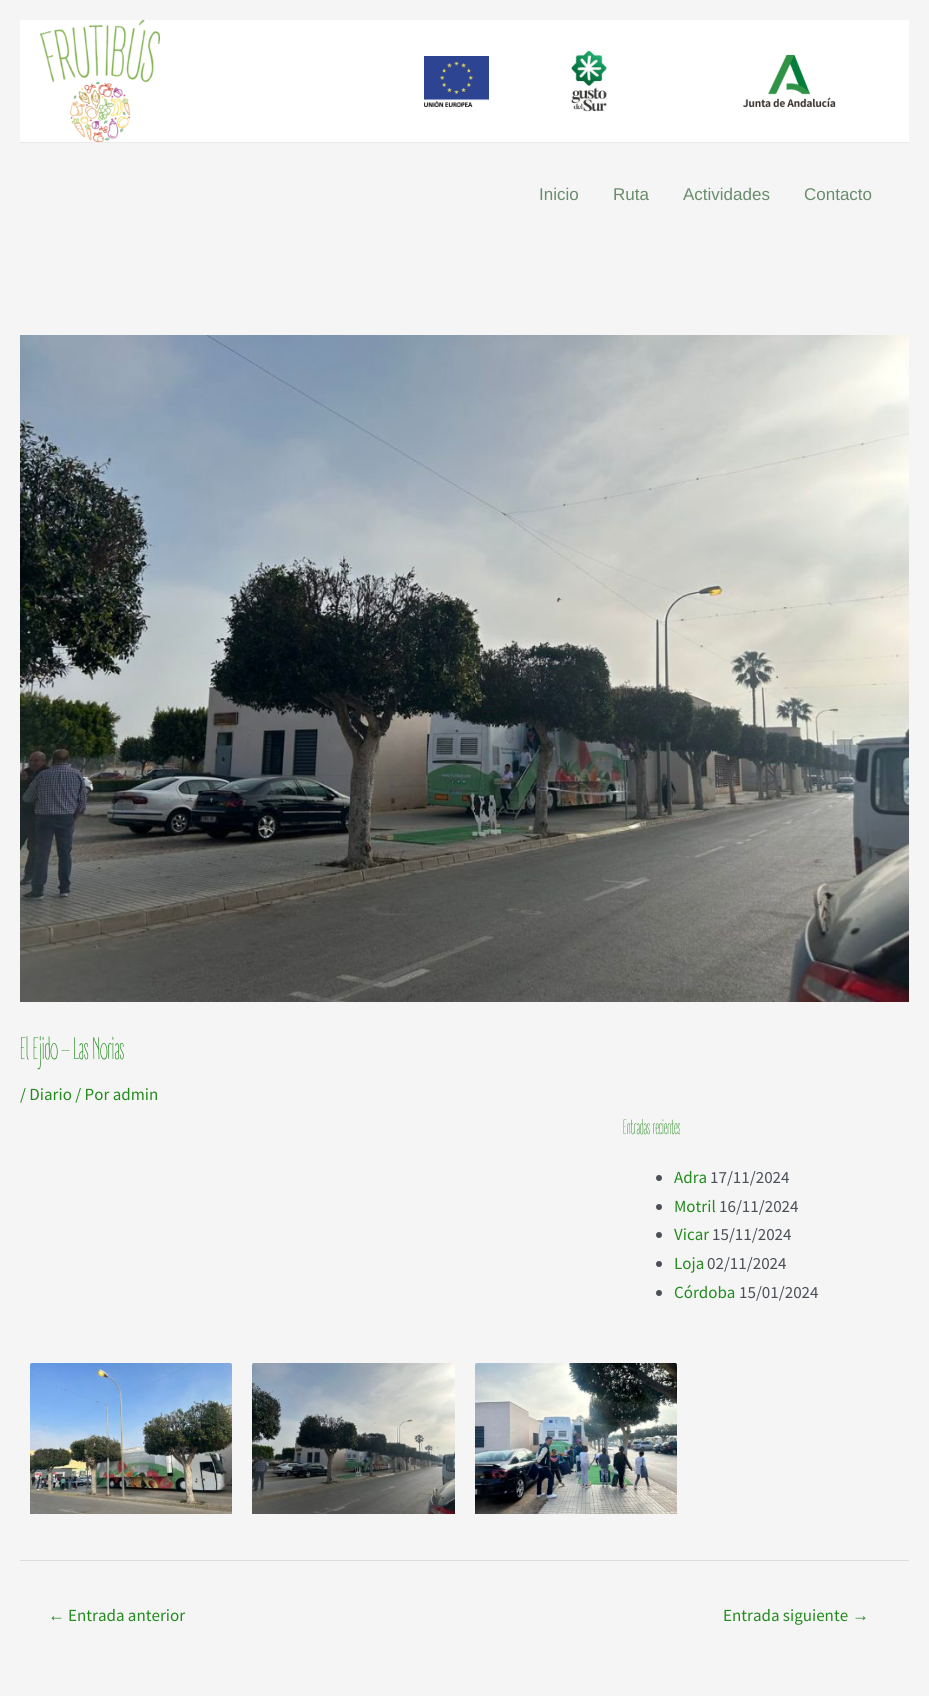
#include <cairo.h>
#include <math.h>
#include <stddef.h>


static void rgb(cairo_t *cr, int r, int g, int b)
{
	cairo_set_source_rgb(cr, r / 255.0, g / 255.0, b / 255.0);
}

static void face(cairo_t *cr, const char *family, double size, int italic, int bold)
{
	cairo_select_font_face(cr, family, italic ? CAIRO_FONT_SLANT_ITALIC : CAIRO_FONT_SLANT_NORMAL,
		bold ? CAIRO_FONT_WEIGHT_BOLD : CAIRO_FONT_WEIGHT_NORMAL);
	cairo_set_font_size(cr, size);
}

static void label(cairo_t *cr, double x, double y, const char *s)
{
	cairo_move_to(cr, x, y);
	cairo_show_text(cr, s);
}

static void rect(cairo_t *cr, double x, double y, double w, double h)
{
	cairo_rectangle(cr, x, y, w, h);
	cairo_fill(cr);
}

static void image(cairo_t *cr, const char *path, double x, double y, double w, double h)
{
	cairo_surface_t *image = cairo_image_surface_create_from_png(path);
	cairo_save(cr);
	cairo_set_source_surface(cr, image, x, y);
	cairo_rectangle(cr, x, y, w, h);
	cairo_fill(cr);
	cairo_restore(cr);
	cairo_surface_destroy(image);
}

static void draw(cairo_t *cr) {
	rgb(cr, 245, 245, 245);
	cairo_paint(cr);
	rgb(cr, 255, 255, 255);
	rect(cr, 20, 20, 889, 122);
	rgb(cr, 234, 234, 234);
	rect(cr, 20, 142, 889, 1);
	image(cr, "image0.png", 40, 20, 120, 122);
	image(cr, "image1.png", 424, 56, 65, 51);
	image(cr, "image2.png", 571, 49, 36, 63);
	image(cr, "image3.png", 743, 54, 93, 54);
	face(cr, "Liberation Sans", 17, 0, 0);
	rgb(cr, 105, 141, 108);
	label(cr, 539, 200, "Inicio");
	label(cr, 613, 200, "Ruta");
	label(cr, 683, 200, "Actividades");
	label(cr, 804, 200, "Contacto");
	image(cr, "image4.png", 20, 335, 889, 667);
	face(cr, "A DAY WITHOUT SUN", 30, 0, 0);
	rgb(cr, 35, 139, 30);
	label(cr, 20, 1059, "El Ejido – Las Norias");
	face(cr, "Source Sans Pro", 17, 0, 0);
	label(cr, 20, 1100, "/ Diario / Por admin");
	face(cr, "A DAY WITHOUT SUN", 20, 0, 0);
	label(cr, 623, 1134, "Entradas recientes");
	rgb(cr, 75, 79, 88);
	cairo_new_path(cr);
	cairo_arc(cr, 659, 1178, 3, 0, 2 * M_PI);
	cairo_fill(cr);
	face(cr, "Source Sans Pro", 17, 0, 0);
	rgb(cr, 35, 139, 30);
	label(cr, 674, 1183, "Adra");
	rgb(cr, 75, 79, 88);
	label(cr, 710, 1183, "17/11/2024");
	cairo_new_path(cr);
	cairo_arc(cr, 659, 1207, 3, 0, 2 * M_PI);
	cairo_fill(cr);
	rgb(cr, 35, 139, 30);
	label(cr, 674, 1212, "Motril");
	rgb(cr, 75, 79, 88);
	label(cr, 719, 1212, "16/11/2024");
	cairo_new_path(cr);
	cairo_arc(cr, 659, 1235, 3, 0, 2 * M_PI);
	cairo_fill(cr);
	rgb(cr, 35, 139, 30);
	label(cr, 674, 1240, "Vicar");
	rgb(cr, 75, 79, 88);
	label(cr, 712, 1240, "15/11/2024");
	cairo_new_path(cr);
	cairo_arc(cr, 659, 1264, 3, 0, 2 * M_PI);
	cairo_fill(cr);
	rgb(cr, 35, 139, 30);
	label(cr, 674, 1269, "Loja");
	rgb(cr, 75, 79, 88);
	label(cr, 707, 1269, "02/11/2024");
	cairo_new_path(cr);
	cairo_arc(cr, 659, 1293, 3, 0, 2 * M_PI);
	cairo_fill(cr);
	rgb(cr, 35, 139, 30);
	label(cr, 674, 1298, "Córdoba");
	rgb(cr, 75, 79, 88);
	label(cr, 739, 1298, "15/01/2024");
	image(cr, "image5.png", 30, 1363, 202, 151);
	image(cr, "image6.png", 252, 1363, 203, 151);
	image(cr, "image7.png", 475, 1363, 202, 151);
	rgb(cr, 221, 221, 221);
	rect(cr, 20, 1560, 889, 1);
	face(cr, "Liberation Sans", 17, 0, 0);
	rgb(cr, 35, 139, 30);
	label(cr, 48, 1621, "←");
	face(cr, "Source Sans Pro", 17, 0, 0);
	label(cr, 68, 1621, "Entrada anterior");
	label(cr, 723, 1621, "Entrada siguiente");
	face(cr, "Liberation Sans", 17, 0, 0);
	label(cr, 852, 1621, "→");
}

int main(void) {
	cairo_surface_t *surface = cairo_image_surface_create(CAIRO_FORMAT_RGB24, 929, 1696);
	cairo_t *cr = cairo_create(surface);
	cairo_font_options_t *options = cairo_font_options_create();
	cairo_font_options_set_hint_metrics(options, CAIRO_HINT_METRICS_OFF);
	cairo_font_options_set_hint_style(options, CAIRO_HINT_STYLE_NONE);
	cairo_set_font_options(cr, options);
	cairo_set_miter_limit(cr, 4);
	draw(cr);
	cairo_surface_write_to_png(surface, "render.png");
	cairo_font_options_destroy(options);
	cairo_destroy(cr);
	cairo_surface_destroy(surface);
	return 0;
}
